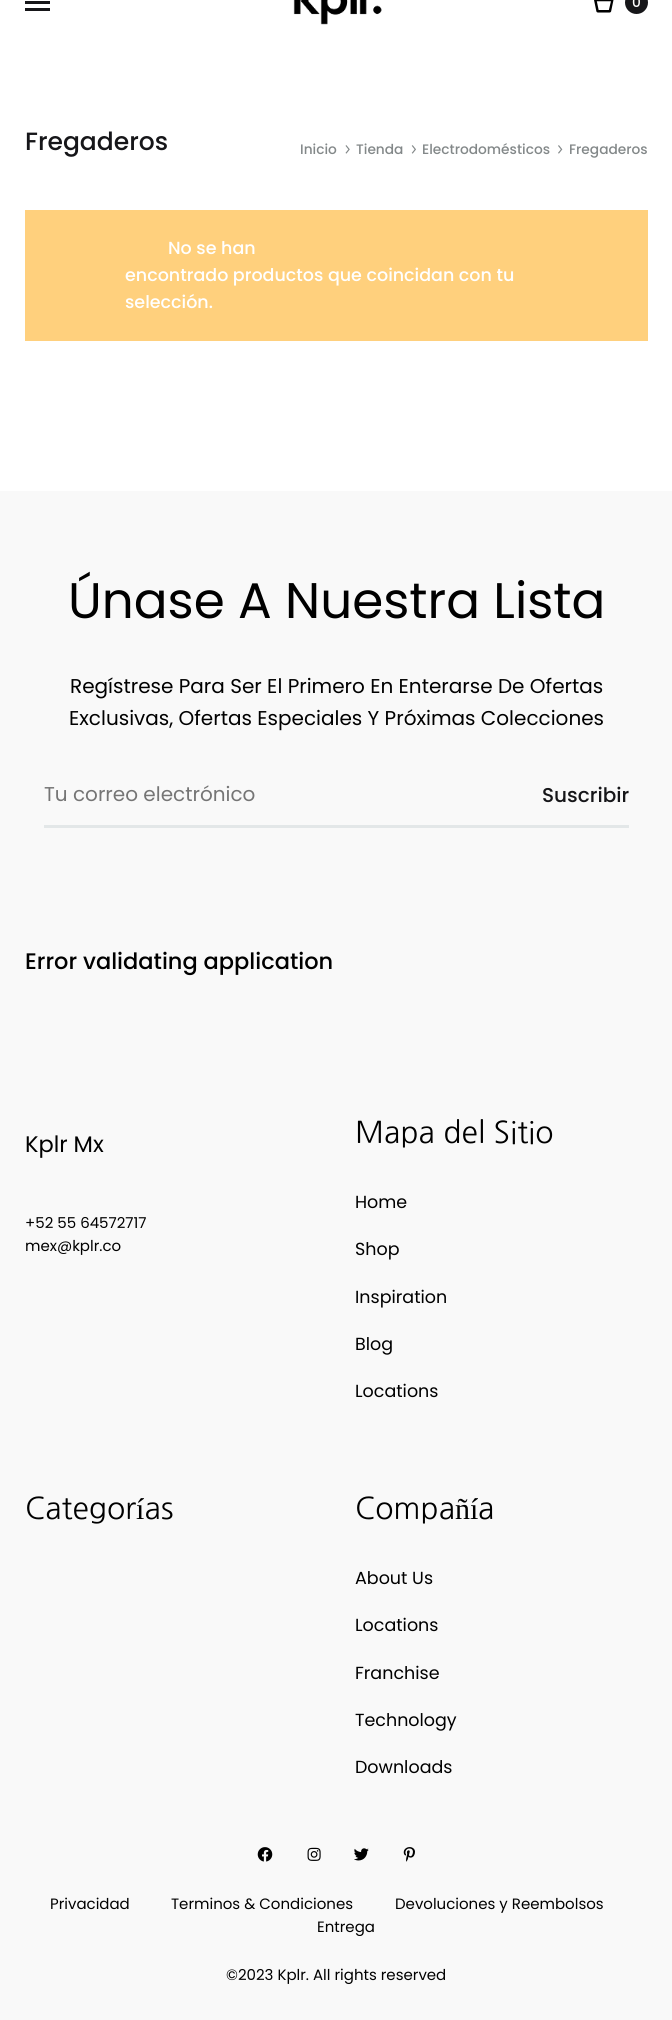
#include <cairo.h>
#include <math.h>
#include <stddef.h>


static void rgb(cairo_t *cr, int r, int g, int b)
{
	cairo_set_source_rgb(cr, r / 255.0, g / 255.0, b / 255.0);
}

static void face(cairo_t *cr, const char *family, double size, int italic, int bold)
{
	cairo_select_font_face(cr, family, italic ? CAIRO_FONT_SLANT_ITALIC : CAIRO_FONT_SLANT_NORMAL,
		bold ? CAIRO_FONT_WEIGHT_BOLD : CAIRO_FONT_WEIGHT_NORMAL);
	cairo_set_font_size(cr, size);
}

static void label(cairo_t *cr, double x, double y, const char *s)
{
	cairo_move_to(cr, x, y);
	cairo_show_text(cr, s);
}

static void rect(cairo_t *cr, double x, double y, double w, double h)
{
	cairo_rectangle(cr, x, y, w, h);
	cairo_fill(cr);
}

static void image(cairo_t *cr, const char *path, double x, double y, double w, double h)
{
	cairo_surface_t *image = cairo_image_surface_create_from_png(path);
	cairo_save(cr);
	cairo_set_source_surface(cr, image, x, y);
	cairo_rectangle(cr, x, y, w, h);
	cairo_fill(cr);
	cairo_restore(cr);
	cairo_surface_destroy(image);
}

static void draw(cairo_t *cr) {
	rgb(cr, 255, 255, 255);
	cairo_paint(cr);
	rgb(cr, 22, 22, 25);
	rect(cr, 25, 1, 25, 3);
	rect(cr, 25, 8, 25, 3);
	image(cr, "image0.png", 293, 0, 89, 25);
	image(cr, "image1.png", 594, 0, 20, 13);
	cairo_arc(cr, 636.5, 2.5, 11.5, 0, 2 * M_PI);
	cairo_fill(cr);
	face(cr, "Poppins Medium", 13.75, 0, 0);
	rgb(cr, 255, 255, 255);
	label(cr, 632, 7, "0");
	face(cr, "Poppins Medium", 25, 0, 0);
	rgb(cr, 22, 22, 25);
	label(cr, 25, 150, "Fregaderos");
	face(cr, "Poppins Medium", 13.75, 0, 0);
	rgb(cr, 131, 136, 137);
	label(cr, 300, 154, "Inicio");
	image(cr, "image2.png", 345, 145, 5, 9);
	label(cr, 356, 154, "Tienda");
	image(cr, "image3.png", 411, 145, 5, 9);
	label(cr, 422, 154, "Electrodomésticos");
	image(cr, "image4.png", 558, 145, 5, 9);
	label(cr, 569, 154, "Fregaderos");
	rgb(cr, 255, 208, 125);
	rect(cr, 25, 210, 623, 131);
	face(cr, "Poppins Medium", 17.5, 0, 0);
	rgb(cr, 255, 255, 255);
	label(cr, 168, 254, "No se han");
	label(cr, 125, 281, "encontrado productos que coincidan con tu");
	label(cr, 125, 308, "selección.");
	rgb(cr, 249, 249, 249);
	rect(cr, 0, 491, 672, 1529);
	face(cr, "Poppins", 50, 0, 0);
	rgb(cr, 0, 0, 0);
	label(cr, 68, 618, "Únase A Nuestra Lista");
	face(cr, "Poppins", 20, 0, 0);
	label(cr, 70, 693, "Regístrese Para Ser El Primero En Enterarse De Ofertas");
	label(cr, 69, 725, "Exclusivas, Ofertas Especiales Y Próximas Colecciones");
	rgb(cr, 227, 231, 232);
	rect(cr, 44, 825, 585, 3);
	rgb(cr, 117, 117, 117);
	label(cr, 44, 801, "Tu correo electrónico");
	face(cr, "Poppins Medium", 20, 0, 0);
	rgb(cr, 22, 22, 25);
	label(cr, 542, 802, "Suscribir");
	face(cr, "Poppins Medium", 22.5, 0, 0);
	rgb(cr, 0, 0, 0);
	label(cr, 25, 969, "Error validating application");
	face(cr, "Poppins", 22.5, 0, 0);
	label(cr, 25, 1152, "Kplr Mx");
	face(cr, "Poppins", 15, 0, 0);
	label(cr, 25, 1228, "+52 55 64572717");
	label(cr, 25, 1251, "mex@kplr.co");
	face(cr, "NanumGothic", 30, 0, 0);
	label(cr, 355, 1143, "Mapa del Sitio");
	face(cr, "Poppins", 17.5, 0, 0);
	label(cr, 355, 1208, "Home");
	label(cr, 355, 1255, "Shop");
	label(cr, 355, 1303, "Inspiration");
	label(cr, 355, 1350, "Blog");
	label(cr, 355, 1397, "Locations");
	face(cr, "NanumGothic", 30, 0, 0);
	label(cr, 25, 1519, "Categor as");
	face(cr, "Liberation Serif", 30, 0, 0);
	label(cr, 136, 1519, "í");
	face(cr, "NanumGothic", 30, 0, 0);
	label(cr, 355, 1519, "Compa");
	face(cr, "Liberation Serif", 30, 0, 0);
	label(cr, 455, 1519, "ñí");
	face(cr, "NanumGothic", 30, 0, 0);
	label(cr, 478, 1519, "a");
	face(cr, "Poppins", 17.5, 0, 0);
	label(cr, 355, 1584, "About Us");
	label(cr, 355, 1631, "Locations");
	label(cr, 355, 1679, "Franchise");
	label(cr, 355, 1726, "Technology");
	label(cr, 355, 1773, "Downloads");
	image(cr, "image5.png", 257, 1847, 16, 15);
	image(cr, "image6.png", 307, 1847, 14, 14);
	image(cr, "image7.png", 354, 1848, 15, 13);
	image(cr, "image8.png", 403, 1847, 12, 15);
	face(cr, "Poppins", 15, 0, 0);
	label(cr, 50, 1909, "Privacidad");
	label(cr, 171, 1909, "Terminos & Condiciones");
	label(cr, 395, 1909, "Devoluciones y Reembolsos");
	label(cr, 317, 1932, "Entrega");
	label(cr, 226, 1980, "©2023 Kplr. All rights reserved");
}

int main(void) {
	cairo_surface_t *surface = cairo_image_surface_create(CAIRO_FORMAT_RGB24, 672, 2020);
	cairo_t *cr = cairo_create(surface);
	cairo_font_options_t *options = cairo_font_options_create();
	cairo_font_options_set_hint_metrics(options, CAIRO_HINT_METRICS_OFF);
	cairo_font_options_set_hint_style(options, CAIRO_HINT_STYLE_NONE);
	cairo_set_font_options(cr, options);
	cairo_set_miter_limit(cr, 4);
	draw(cr);
	cairo_surface_write_to_png(surface, "render.png");
	cairo_font_options_destroy(options);
	cairo_destroy(cr);
	cairo_surface_destroy(surface);
	return 0;
}
